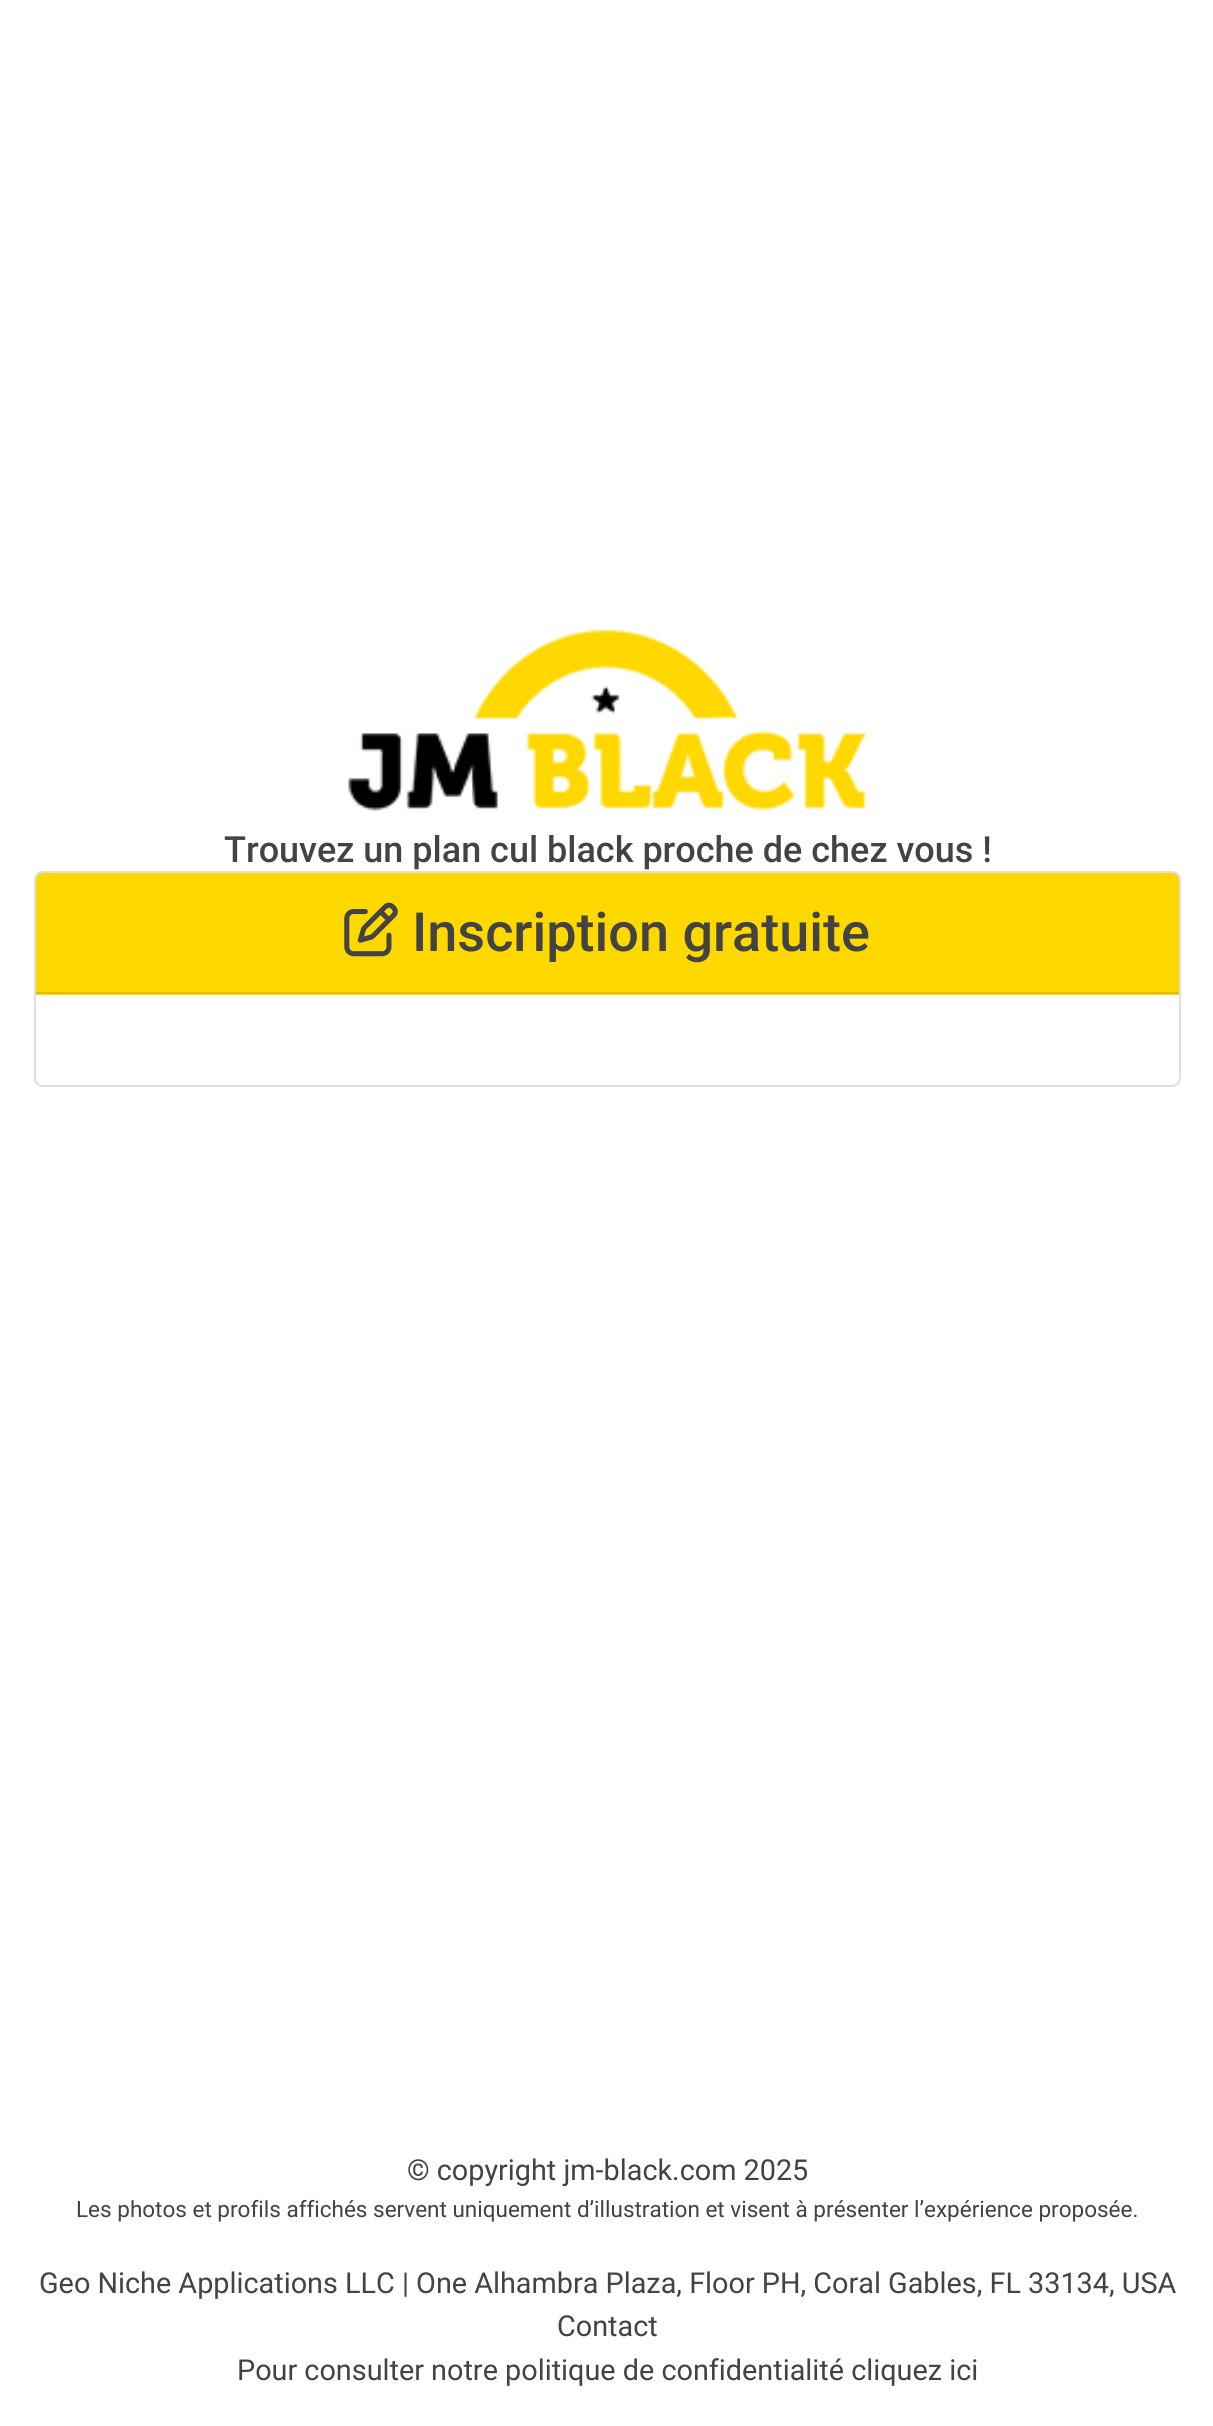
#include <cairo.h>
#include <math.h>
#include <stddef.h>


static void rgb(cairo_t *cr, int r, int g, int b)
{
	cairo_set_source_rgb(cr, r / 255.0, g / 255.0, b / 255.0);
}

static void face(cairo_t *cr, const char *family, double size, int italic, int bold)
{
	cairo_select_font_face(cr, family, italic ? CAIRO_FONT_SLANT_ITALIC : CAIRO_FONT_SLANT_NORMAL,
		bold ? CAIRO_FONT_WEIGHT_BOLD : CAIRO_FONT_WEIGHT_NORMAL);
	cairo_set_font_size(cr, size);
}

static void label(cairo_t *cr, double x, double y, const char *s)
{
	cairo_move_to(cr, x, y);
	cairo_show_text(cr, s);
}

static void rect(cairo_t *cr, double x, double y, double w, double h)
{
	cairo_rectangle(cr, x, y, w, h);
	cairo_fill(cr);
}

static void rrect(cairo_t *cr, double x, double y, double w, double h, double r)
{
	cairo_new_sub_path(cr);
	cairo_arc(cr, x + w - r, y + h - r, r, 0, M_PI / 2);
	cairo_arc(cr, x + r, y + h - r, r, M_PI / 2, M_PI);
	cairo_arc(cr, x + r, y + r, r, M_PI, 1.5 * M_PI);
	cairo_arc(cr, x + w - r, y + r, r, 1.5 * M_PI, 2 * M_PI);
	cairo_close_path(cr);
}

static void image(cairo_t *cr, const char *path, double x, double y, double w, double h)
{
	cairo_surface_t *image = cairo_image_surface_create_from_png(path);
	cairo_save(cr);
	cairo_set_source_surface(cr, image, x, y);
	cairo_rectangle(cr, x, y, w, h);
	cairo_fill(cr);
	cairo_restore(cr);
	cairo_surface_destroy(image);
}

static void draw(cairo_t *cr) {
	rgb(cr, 255, 255, 255);
	cairo_paint(cr);
	image(cr, "image0.png", 348, 630, 519, 181);
	face(cr, "Roboto Medium", 36, 0, 0);
	rgb(cr, 67, 67, 67);
	label(cr, 224, 862, "Trouvez un plan cul black proche de chez vous !");
	rrect(cr, 35, 872, 1145, 214, 8);
	rgb(cr, 223, 223, 223);
	cairo_stroke(cr);
	rgb(cr, 255, 216, 0);
	cairo_new_path(cr);
	cairo_move_to(cr, 43, 873);
	cairo_line_to(cr, 1172, 873);
	cairo_curve_to(cr, 1176, 873, 1179, 876, 1179, 880);
	cairo_line_to(cr, 1179, 995);
	cairo_line_to(cr, 36, 995);
	cairo_line_to(cr, 36, 880);
	cairo_curve_to(cr, 36, 876, 39, 873, 43, 873);
	cairo_close_path(cr);
	cairo_fill(cr);
	rgb(cr, 223, 189, 0);
	rect(cr, 36, 992, 1143, 2);
	image(cr, "image1.png", 344, 902, 54, 55);
	face(cr, "Roboto Medium", 54, 0, 0);
	rgb(cr, 67, 67, 67);
	label(cr, 412, 951, "Inscription gratuite");
	face(cr, "Roboto", 28.8, 0, 0);
	label(cr, 407, 2180, "© copyright jm-black.com 2025");
	face(cr, "Roboto", 22.5, 0, 0);
	label(cr, 76, 2217, "Les photos et profils affichés servent uniquement d’illustration et visent à présenter l’expérience proposée.");
	face(cr, "Roboto", 28.8, 0, 0);
	label(cr, 39, 2293, "Geo Niche Applications LLC | One Alhambra Plaza, Floor PH, Coral Gables, FL 33134, USA");
	label(cr, 557, 2336, "Contact");
	label(cr, 237, 2380, "Pour consulter notre politique de confidentialité cliquez ici");
}

int main(void) {
	cairo_surface_t *surface = cairo_image_surface_create(CAIRO_FORMAT_RGB24, 1213, 2426);
	cairo_t *cr = cairo_create(surface);
	cairo_font_options_t *options = cairo_font_options_create();
	cairo_font_options_set_hint_metrics(options, CAIRO_HINT_METRICS_OFF);
	cairo_font_options_set_hint_style(options, CAIRO_HINT_STYLE_NONE);
	cairo_set_font_options(cr, options);
	cairo_set_miter_limit(cr, 4);
	draw(cr);
	cairo_surface_write_to_png(surface, "render.png");
	cairo_font_options_destroy(options);
	cairo_destroy(cr);
	cairo_surface_destroy(surface);
	return 0;
}
